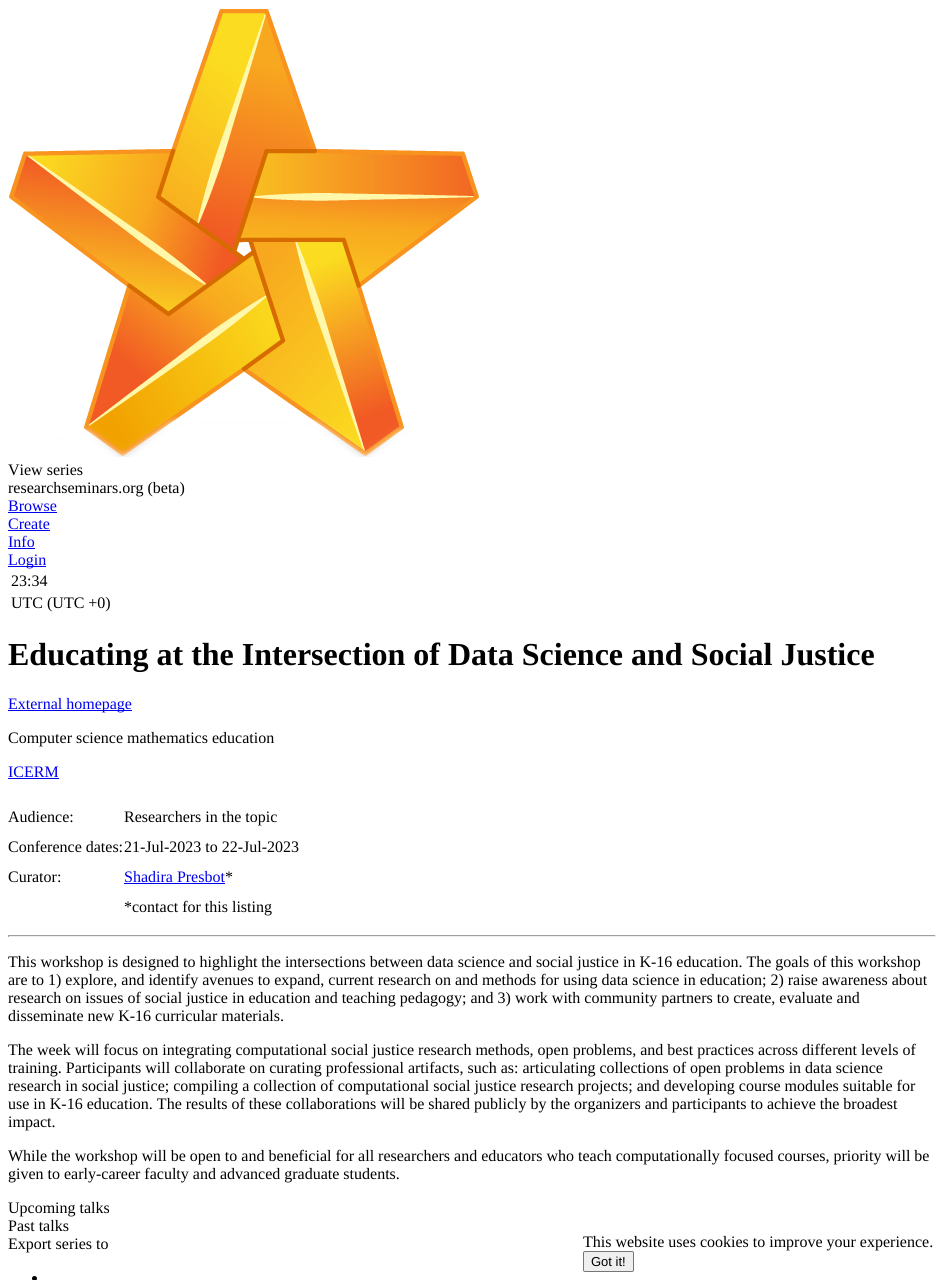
#include <cairo.h>
#include <math.h>
#include <stddef.h>


static void rgb(cairo_t *cr, int r, int g, int b)
{
	cairo_set_source_rgb(cr, r / 255.0, g / 255.0, b / 255.0);
}

static void face(cairo_t *cr, const char *family, double size, int italic, int bold)
{
	cairo_select_font_face(cr, family, italic ? CAIRO_FONT_SLANT_ITALIC : CAIRO_FONT_SLANT_NORMAL,
		bold ? CAIRO_FONT_WEIGHT_BOLD : CAIRO_FONT_WEIGHT_NORMAL);
	cairo_set_font_size(cr, size);
}

static void label(cairo_t *cr, double x, double y, const char *s)
{
	cairo_move_to(cr, x, y);
	cairo_show_text(cr, s);
}

static void rect(cairo_t *cr, double x, double y, double w, double h)
{
	cairo_rectangle(cr, x, y, w, h);
	cairo_fill(cr);
}

static void rrect(cairo_t *cr, double x, double y, double w, double h, double r)
{
	cairo_new_sub_path(cr);
	cairo_arc(cr, x + w - r, y + h - r, r, 0, M_PI / 2);
	cairo_arc(cr, x + r, y + h - r, r, M_PI / 2, M_PI);
	cairo_arc(cr, x + r, y + r, r, M_PI, 1.5 * M_PI);
	cairo_arc(cr, x + w - r, y + r, r, 1.5 * M_PI, 2 * M_PI);
	cairo_close_path(cr);
}

static void image(cairo_t *cr, const char *path, double x, double y, double w, double h)
{
	cairo_surface_t *image = cairo_image_surface_create_from_png(path);
	cairo_save(cr);
	cairo_set_source_surface(cr, image, x, y);
	cairo_rectangle(cr, x, y, w, h);
	cairo_fill(cr);
	cairo_restore(cr);
	cairo_surface_destroy(image);
}

static void draw(cairo_t *cr) {
	rgb(cr, 255, 255, 255);
	cairo_paint(cr);
	image(cr, "image0.png", 9, 9, 470, 448);
	face(cr, "Liberation Serif", 16, 0, 0);
	rgb(cr, 0, 0, 0);
	label(cr, 8, 475, "View series");
	label(cr, 8, 493, "researchseminars.org (beta)");
	rgb(cr, 0, 0, 238);
	label(cr, 8, 511, "Browse");
	rect(cr, 8, 512, 49, 1);
	label(cr, 8, 529, "Create");
	rect(cr, 8, 530, 42, 1);
	label(cr, 8, 547, "Info");
	rect(cr, 8, 548, 27, 1);
	rect(cr, 8, 566, 38, 1);
	label(cr, 8, 565, "Login");
	rgb(cr, 0, 0, 0);
	label(cr, 11, 586, "23:34");
	label(cr, 11, 608, "UTC (UTC +0)");
	face(cr, "Liberation Serif", 32, 0, 1);
	label(cr, 8, 665, "Educating at the Intersection of Data Science and Social Justice");
	rgb(cr, 0, 0, 238);
	rect(cr, 8, 710, 124, 1);
	face(cr, "Liberation Serif", 16, 0, 0);
	label(cr, 8, 709, "External homepage");
	rgb(cr, 0, 0, 0);
	label(cr, 8, 743, "Computer science mathematics education");
	rgb(cr, 0, 0, 238);
	label(cr, 8, 777, "ICERM");
	rect(cr, 8, 778, 51, 1);
	rgb(cr, 0, 0, 0);
	label(cr, 8, 822, "Audience:");
	label(cr, 124, 822, "Researchers in the topic");
	label(cr, 8, 852, "Conference dates:");
	label(cr, 124, 852, "21-Jul-2023 to 22-Jul-2023");
	label(cr, 8, 882, "Curator:");
	rgb(cr, 0, 0, 238);
	label(cr, 124, 882, "Shadira Presbot");
	rect(cr, 124, 883, 101, 1);
	rgb(cr, 0, 0, 0);
	label(cr, 225, 882, "*");
	label(cr, 124, 912, "*contact for this listing");
	rgb(cr, 159, 159, 159);
	rect(cr, 8, 935, 928, 1);
	rgb(cr, 238, 238, 238);
	rect(cr, 935, 935, 1, 2);
	rect(cr, 8, 936, 928, 1);
	rgb(cr, 159, 159, 159);
	rect(cr, 8, 935, 1, 2);
	rgb(cr, 0, 0, 0);
	label(cr, 8, 967, "This workshop is designed to highlight the intersections between data science and social justice in K-16 education. The goals of this workshop");
	label(cr, 8, 985, "are to 1) explore, and identify avenues to expand, current research on and methods for using data science in education; 2) raise awareness about");
	label(cr, 8, 1003, "research on issues of social justice in education and teaching pedagogy; and 3) work with community partners to create, evaluate and");
	label(cr, 8, 1021, "disseminate new K-16 curricular materials.");
	label(cr, 8, 1055, "The week will focus on integrating computational social justice research methods, open problems, and best practices across different levels of");
	label(cr, 8, 1073, "training. Participants will collaborate on curating professional artifacts, such as: articulating collections of open problems in data science");
	label(cr, 8, 1091, "research in social justice; compiling a collection of computational social justice research projects; and developing course modules suitable for");
	label(cr, 8, 1109, "use in K-16 education. The results of these collaborations will be shared publicly by the organizers and participants to achieve the broadest");
	label(cr, 8, 1127, "impact.");
	label(cr, 8, 1161, "While the workshop will be open to and beneficial for all researchers and educators who teach computationally focused courses, priority will be");
	label(cr, 8, 1179, "given to early-career faculty and advanced graduate students.");
	label(cr, 8, 1213, "Upcoming talks");
	label(cr, 8, 1231, "Past talks");
	label(cr, 8, 1249, "Export series to");
	cairo_new_path(cr);
	cairo_arc(cr, 34.5, 1278.5, 2.5, 0, 2 * M_PI);
	cairo_fill(cr);
	label(cr, 583, 1247, "This website uses cookies to improve your experience.");
	rgb(cr, 239, 239, 239);
	rrect(cr, 583.5, 1251.5, 50, 20, 1.5);
	cairo_fill_preserve(cr);
	rgb(cr, 118, 118, 118);
	cairo_set_line_width(cr, 1);
	cairo_stroke(cr);
	face(cr, "Liberation Sans", 13, 0, 0);
	rgb(cr, 0, 0, 0);
	label(cr, 591, 1266, "Got it!");
}

int main(void) {
	cairo_surface_t *surface = cairo_image_surface_create(CAIRO_FORMAT_RGB24, 944, 1280);
	cairo_t *cr = cairo_create(surface);
	cairo_font_options_t *options = cairo_font_options_create();
	cairo_font_options_set_hint_metrics(options, CAIRO_HINT_METRICS_OFF);
	cairo_font_options_set_hint_style(options, CAIRO_HINT_STYLE_NONE);
	cairo_set_font_options(cr, options);
	cairo_set_miter_limit(cr, 4);
	draw(cr);
	cairo_surface_write_to_png(surface, "render.png");
	cairo_font_options_destroy(options);
	cairo_destroy(cr);
	cairo_surface_destroy(surface);
	return 0;
}
